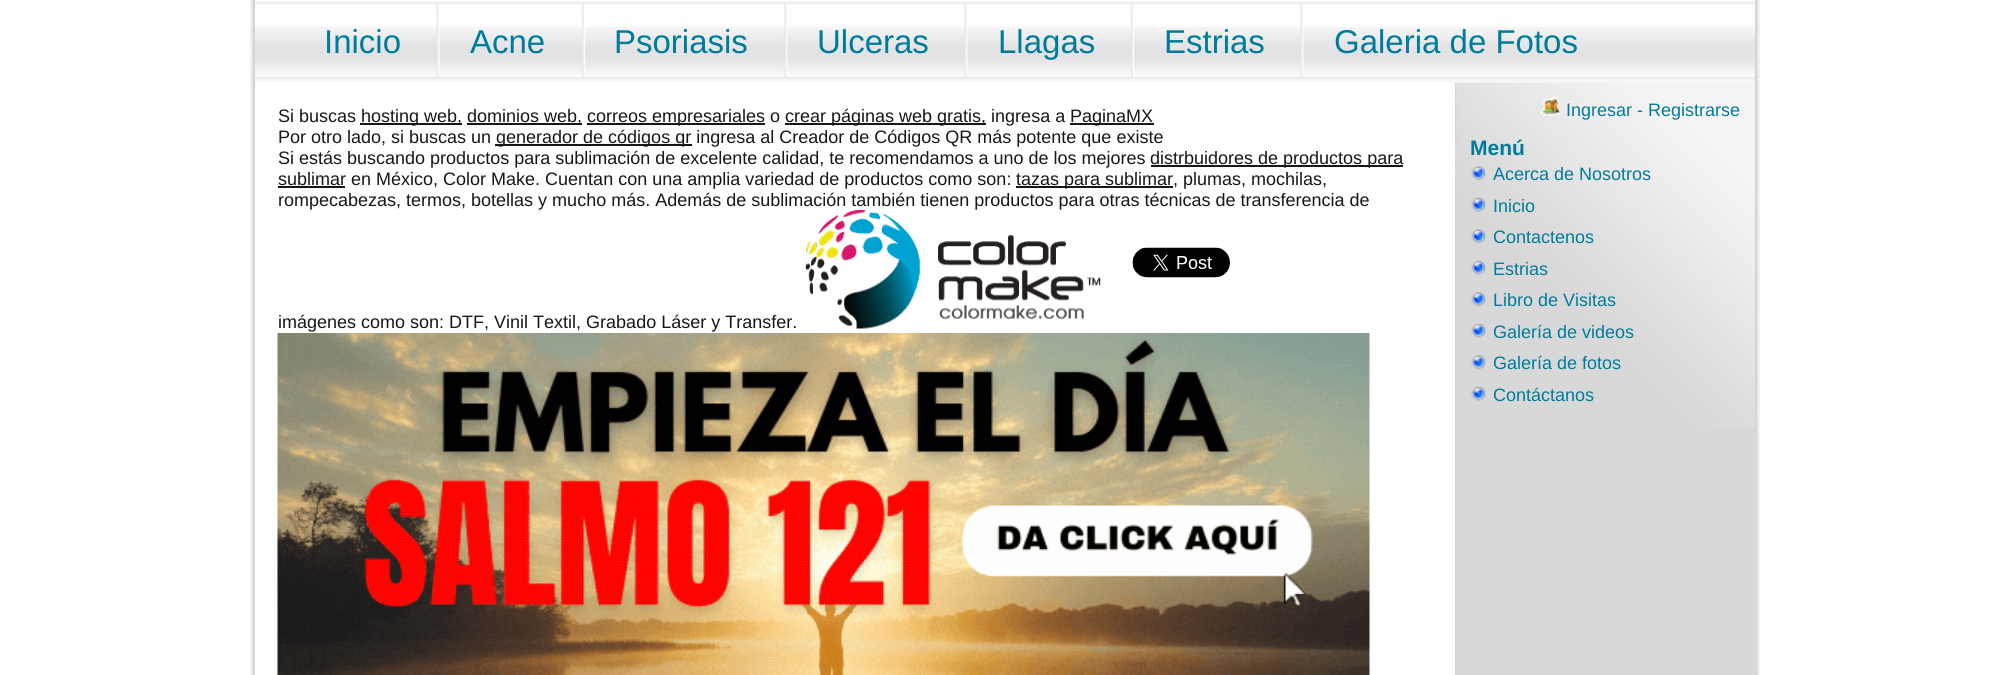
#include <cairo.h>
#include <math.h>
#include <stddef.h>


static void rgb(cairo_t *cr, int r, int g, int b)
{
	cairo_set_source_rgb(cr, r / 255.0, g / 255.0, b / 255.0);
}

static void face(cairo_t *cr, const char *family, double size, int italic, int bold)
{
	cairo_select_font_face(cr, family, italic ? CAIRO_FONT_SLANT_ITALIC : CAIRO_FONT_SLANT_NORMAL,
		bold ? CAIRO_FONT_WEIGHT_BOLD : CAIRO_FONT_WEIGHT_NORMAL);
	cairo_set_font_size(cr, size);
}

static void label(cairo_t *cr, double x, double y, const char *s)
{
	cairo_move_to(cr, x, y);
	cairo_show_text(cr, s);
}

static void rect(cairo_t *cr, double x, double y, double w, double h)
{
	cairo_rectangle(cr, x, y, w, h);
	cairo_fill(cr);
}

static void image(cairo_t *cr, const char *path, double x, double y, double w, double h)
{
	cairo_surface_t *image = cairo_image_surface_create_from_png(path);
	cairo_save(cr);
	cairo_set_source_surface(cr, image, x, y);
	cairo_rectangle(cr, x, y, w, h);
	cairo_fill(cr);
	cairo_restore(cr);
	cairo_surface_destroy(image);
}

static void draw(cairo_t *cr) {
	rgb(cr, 255, 255, 255);
	cairo_paint(cr);
	image(cr, "image0.png", 250, 0, 1510, 675);
	image(cr, "image1.png", 255, 0, 1500, 83);
	face(cr, "Liberation Sans", 33, 0, 0);
	rgb(cr, 0, 124, 155);
	label(cr, 324, 53, "Inicio");
	image(cr, "image2.png", 434, 3, 6, 78);
	label(cr, 470, 53, "Acne");
	image(cr, "image3.png", 579, 3, 7, 78);
	label(cr, 614, 53, "Psoriasis");
	image(cr, "image4.png", 782, 3, 6, 78);
	label(cr, 817, 53, "Ulceras");
	image(cr, "image4.png", 962, 3, 6, 78);
	label(cr, 998, 53, "Llagas");
	image(cr, "image3.png", 1128, 3, 7, 78);
	label(cr, 1164, 53, "Estrias");
	image(cr, "image4.png", 1298, 3, 6, 78);
	label(cr, 1334, 53, "Galeria de Fotos");
	rgb(cr, 255, 255, 255);
	rect(cr, 255, 83, 1, 592);
	face(cr, "Liberation Sans", 18, 0, 0);
	rgb(cr, 23, 23, 23);
	label(cr, 278, 122, "Si buscas");
	rect(cr, 360, 123, 102, 2);
	label(cr, 361, 122, "hosting web,");
	rect(cr, 467, 123, 115, 2);
	label(cr, 467, 122, "dominios web,");
	rect(cr, 587, 123, 178, 2);
	label(cr, 587, 122, "correos empresariales o");
	rect(cr, 785, 123, 201, 2);
	label(cr, 785, 122, "crear páginas web gratis, ingresa a");
	rect(cr, 1070, 123, 84, 2);
	label(cr, 1070, 122, "PaginaMX");
	label(cr, 278, 143, "Por otro lado, si buscas un");
	rect(cr, 495, 144, 197, 2);
	label(cr, 496, 143, "generador de códigos qr ingresa al Creador de Códigos QR más potente que existe");
	label(cr, 278, 164, "Si estás buscando productos para sublimación de excelente calidad, te recomendamos a uno de los mejores");
	rect(cr, 1151, 165, 252, 2);
	label(cr, 1150, 164, "distrbuidores de productos para");
	rect(cr, 278, 186, 67, 2);
	label(cr, 278, 185, "sublimar en México, Color Make. Cuentan con una amplia variedad de productos como son:");
	rect(cr, 1016, 186, 157, 2);
	label(cr, 1016, 185, "tazas para sublimar, plumas, mochilas,");
	label(cr, 278, 206, "rompecabezas, termos, botellas y mucho más. Además de sublimación también tienen productos para otras técnicas de transferencia de");
	label(cr, 278, 328, "imágenes como son: DTF, Vinil Textil, Grabado Láser y Transfer.");
	image(cr, "image5.png", 805, 210, 296, 119);
	image(cr, "image6.png", 277, 333, 1093, 342);
	image(cr, "image7.png", 1132, 247, 98, 31);
	rgb(cr, 216, 216, 216);
	rect(cr, 1455, 428, 300, 247);
	image(cr, "image8.png", 1455, 82, 300, 346);
	image(cr, "image9.png", 1540, 97, 22, 19);
	rgb(cr, 0, 124, 155);
	label(cr, 1566, 116, "Ingresar - Registrarse");
	face(cr, "Liberation Sans", 21, 0, 1);
	label(cr, 1470, 155, "Menú");
	image(cr, "image10.png", 1471, 166, 15, 15);
	face(cr, "Liberation Sans", 18, 0, 0);
	label(cr, 1493, 180, "Acerca de Nosotros");
	image(cr, "image11.png", 1471, 197, 15, 15);
	label(cr, 1493, 212, "Inicio");
	image(cr, "image12.png", 1471, 229, 15, 15);
	label(cr, 1493, 243, "Contactenos");
	image(cr, "image13.png", 1471, 260, 15, 15);
	label(cr, 1493, 275, "Estrias");
	image(cr, "image12.png", 1471, 292, 15, 15);
	label(cr, 1493, 306, "Libro de Visitas");
	image(cr, "image13.png", 1471, 323, 15, 15);
	label(cr, 1493, 338, "Galería de videos");
	image(cr, "image12.png", 1471, 355, 15, 15);
	label(cr, 1493, 369, "Galería de fotos");
	image(cr, "image13.png", 1471, 386, 15, 15);
	label(cr, 1493, 401, "Contáctanos");
}

int main(void) {
	cairo_surface_t *surface = cairo_image_surface_create(CAIRO_FORMAT_RGB24, 2009, 675);
	cairo_t *cr = cairo_create(surface);
	cairo_font_options_t *options = cairo_font_options_create();
	cairo_font_options_set_hint_metrics(options, CAIRO_HINT_METRICS_OFF);
	cairo_font_options_set_hint_style(options, CAIRO_HINT_STYLE_NONE);
	cairo_set_font_options(cr, options);
	cairo_set_miter_limit(cr, 4);
	draw(cr);
	cairo_surface_write_to_png(surface, "render.png");
	cairo_font_options_destroy(options);
	cairo_destroy(cr);
	cairo_surface_destroy(surface);
	return 0;
}
